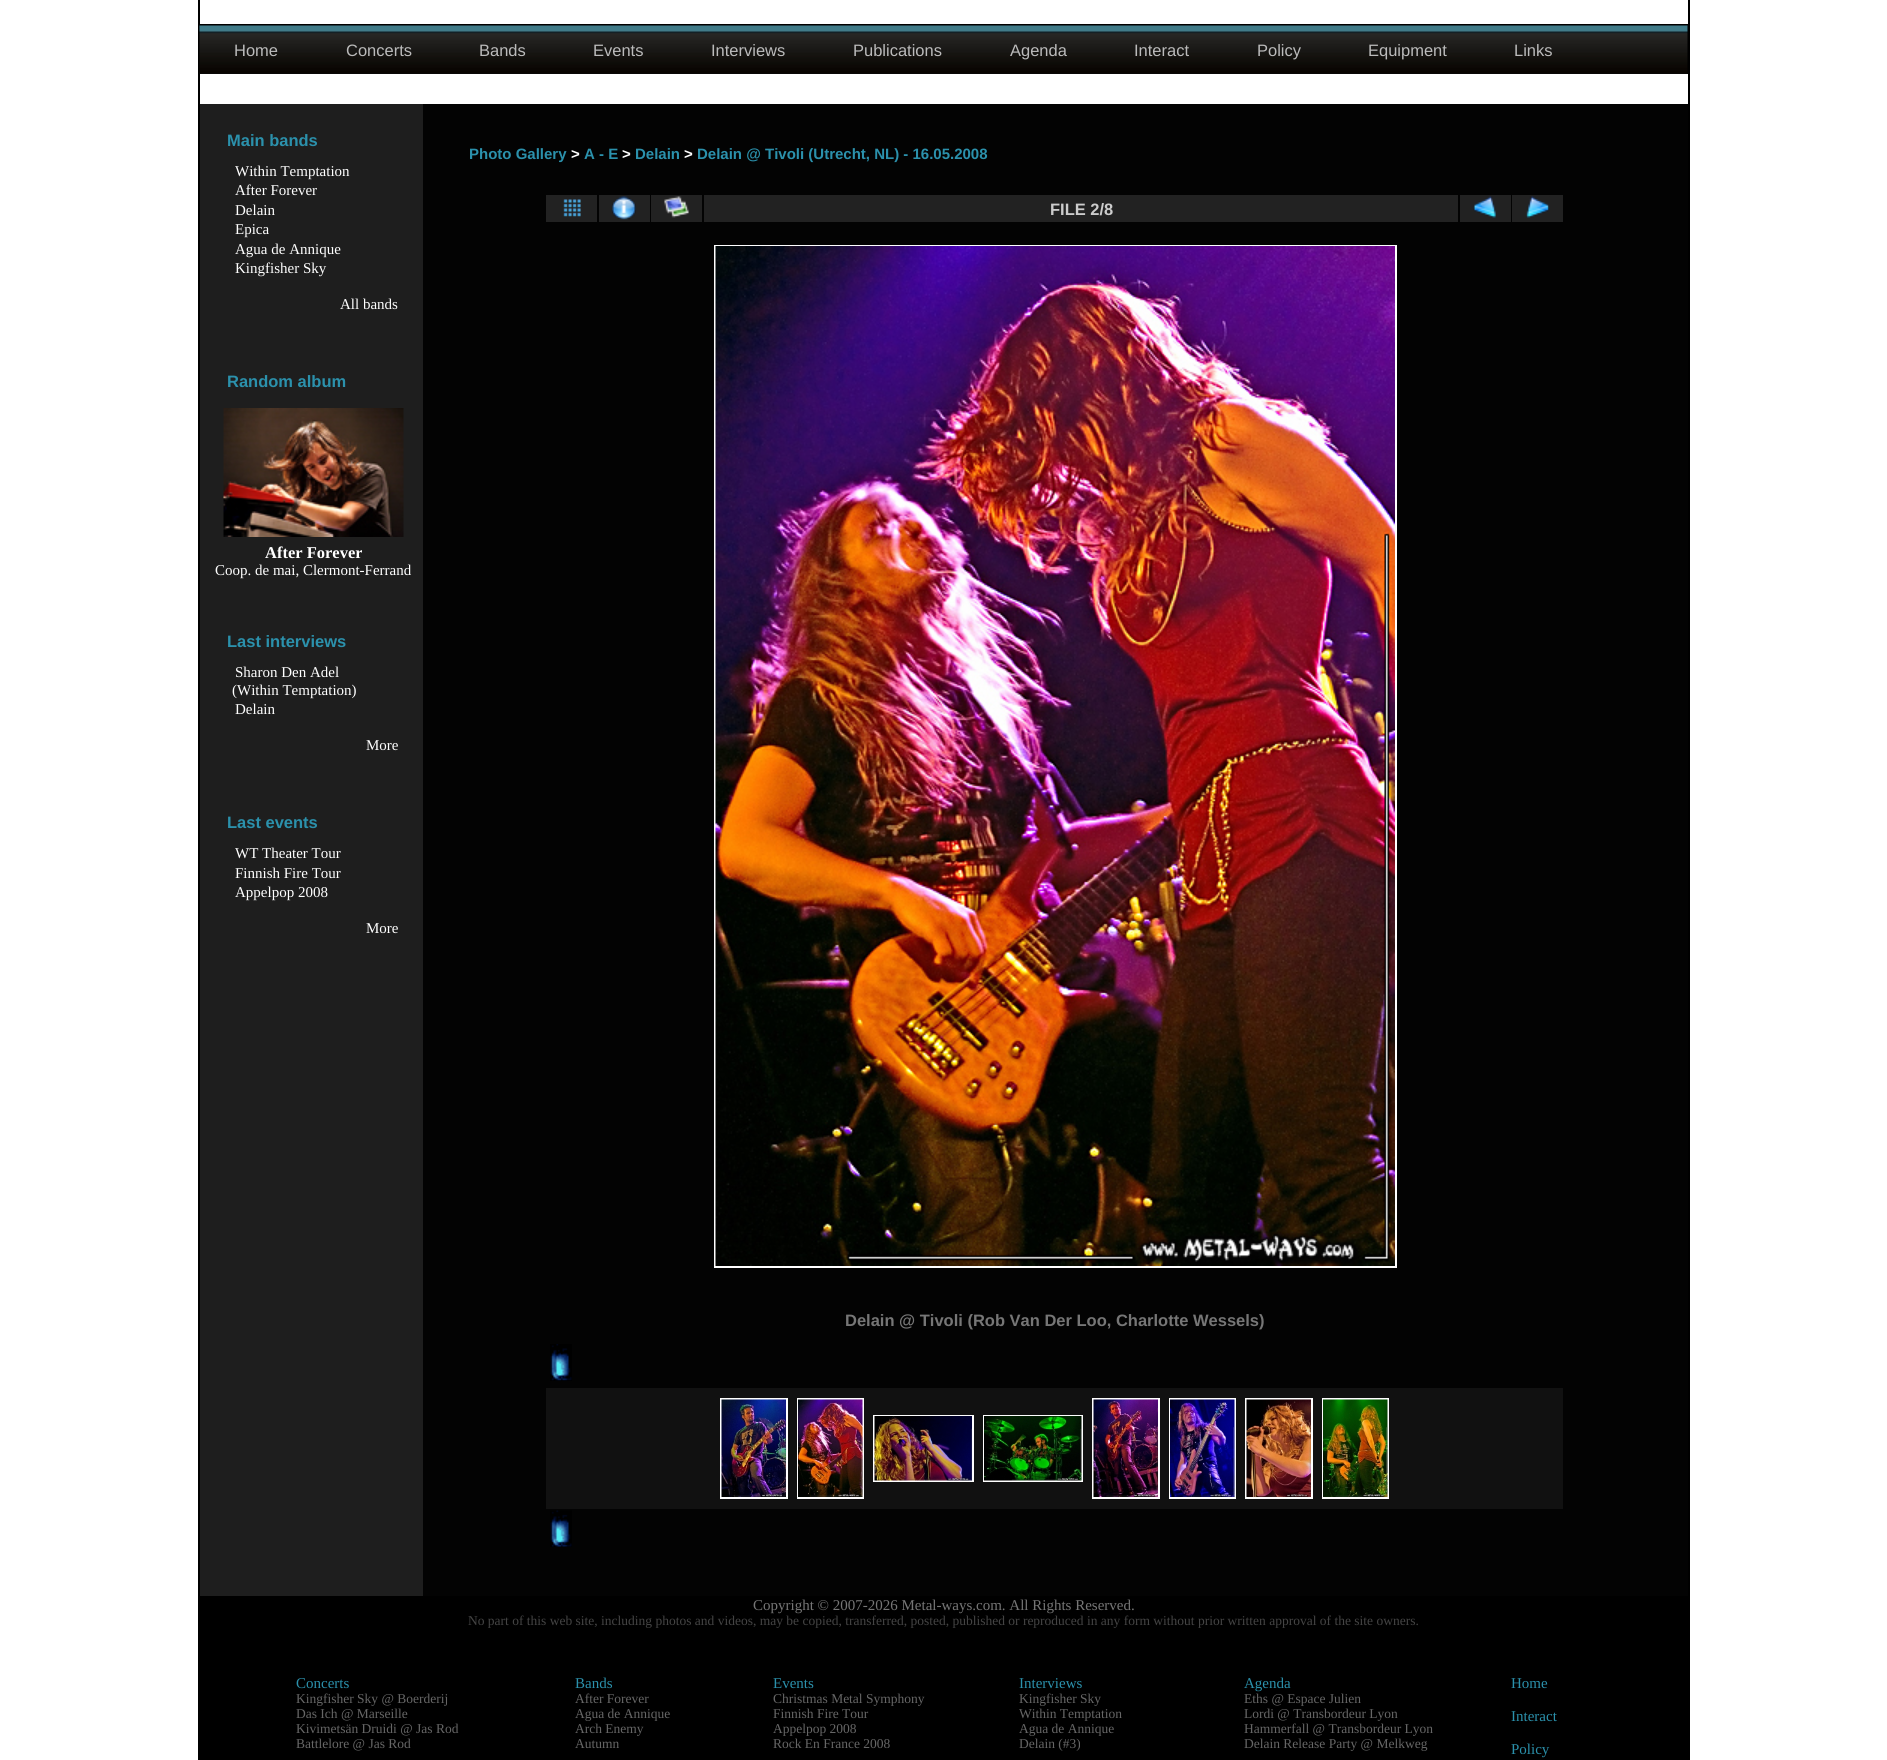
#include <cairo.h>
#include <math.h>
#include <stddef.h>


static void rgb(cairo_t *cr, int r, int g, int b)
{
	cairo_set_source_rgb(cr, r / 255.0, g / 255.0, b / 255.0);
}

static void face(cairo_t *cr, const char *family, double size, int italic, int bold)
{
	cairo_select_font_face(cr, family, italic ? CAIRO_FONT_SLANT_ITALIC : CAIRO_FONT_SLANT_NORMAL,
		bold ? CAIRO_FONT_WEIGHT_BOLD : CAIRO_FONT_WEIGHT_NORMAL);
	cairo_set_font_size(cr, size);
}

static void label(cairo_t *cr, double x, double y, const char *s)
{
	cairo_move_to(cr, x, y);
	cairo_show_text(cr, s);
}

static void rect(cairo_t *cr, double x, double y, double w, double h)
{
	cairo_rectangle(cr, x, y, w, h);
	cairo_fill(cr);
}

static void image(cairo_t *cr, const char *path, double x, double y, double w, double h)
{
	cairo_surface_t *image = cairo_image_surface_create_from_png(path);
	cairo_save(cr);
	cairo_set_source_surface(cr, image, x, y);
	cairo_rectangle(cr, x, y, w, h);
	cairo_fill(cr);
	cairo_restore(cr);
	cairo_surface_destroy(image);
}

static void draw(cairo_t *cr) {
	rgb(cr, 255, 255, 255);
	cairo_paint(cr);
	rgb(cr, 0, 0, 0);
	rect(cr, 1688, 0, 2, 1760);
	rect(cr, 198, 0, 2, 1760);
	rect(cr, 200, 24, 1488, 50);
	image(cr, "image0.png", 199, 25, 1489, 49);
	face(cr, "Liberation Sans", 16.5, 0, 0);
	rgb(cr, 187, 187, 187);
	label(cr, 234, 56, "Home");
	label(cr, 346, 56, "Concerts");
	label(cr, 479, 56, "Bands");
	label(cr, 593, 56, "Events");
	label(cr, 711, 56, "Interviews");
	label(cr, 853, 56, "Publications");
	label(cr, 1010, 56, "Agenda");
	label(cr, 1134, 56, "Interact");
	label(cr, 1257, 56, "Policy");
	label(cr, 1368, 56, "Equipment");
	label(cr, 1514, 56, "Links");
	rgb(cr, 30, 30, 30);
	rect(cr, 200, 104, 223, 1492);
	face(cr, "Liberation Sans", 16.5, 0, 1);
	rgb(cr, 43, 145, 172);
	label(cr, 227, 146, "Main bands");
	face(cr, "Liberation Serif", 15, 0, 0);
	rgb(cr, 255, 255, 255);
	label(cr, 235, 176, "Within Temptation");
	label(cr, 235, 195, "After Forever");
	label(cr, 235, 215, "Delain");
	label(cr, 235, 234, "Epica");
	label(cr, 235, 254, "Agua de Annique");
	label(cr, 235, 273, "Kingfisher Sky");
	label(cr, 340, 309, "All bands");
	face(cr, "Liberation Sans", 16.5, 0, 1);
	rgb(cr, 43, 145, 172);
	label(cr, 227, 387, "Random album");
	image(cr, "image1.png", 223, 408, 181, 129);
	face(cr, "Liberation Serif", 16.5, 0, 1);
	rgb(cr, 255, 255, 255);
	label(cr, 265, 558, "After Forever");
	face(cr, "Liberation Serif", 15, 0, 0);
	label(cr, 215, 575, "Coop. de mai, Clermont-Ferrand");
	face(cr, "Liberation Sans", 16.5, 0, 1);
	rgb(cr, 43, 145, 172);
	label(cr, 227, 647, "Last interviews");
	face(cr, "Liberation Serif", 15, 0, 0);
	rgb(cr, 255, 255, 255);
	label(cr, 235, 677, "Sharon Den Adel");
	label(cr, 232, 695, "(Within Temptation)");
	label(cr, 235, 714, "Delain");
	label(cr, 366, 750, "More");
	face(cr, "Liberation Sans", 16.5, 0, 1);
	rgb(cr, 43, 145, 172);
	label(cr, 227, 828, "Last events");
	face(cr, "Liberation Serif", 15, 0, 0);
	rgb(cr, 255, 255, 255);
	label(cr, 235, 858, "WT Theater Tour");
	label(cr, 235, 878, "Finnish Fire Tour");
	label(cr, 235, 897, "Appelpop 2008");
	label(cr, 366, 933, "More");
	rgb(cr, 3, 3, 3);
	rect(cr, 423, 104, 1265, 1492);
	face(cr, "Liberation Sans", 15, 0, 1);
	rgb(cr, 43, 145, 172);
	label(cr, 469, 159, "Photo Gallery");
	rgb(cr, 255, 255, 255);
	label(cr, 571, 159, ">");
	rgb(cr, 43, 145, 172);
	label(cr, 584, 159, "A - E");
	rgb(cr, 255, 255, 255);
	label(cr, 622, 159, ">");
	rgb(cr, 43, 145, 172);
	label(cr, 635, 159, "Delain");
	rgb(cr, 255, 255, 255);
	label(cr, 684, 159, ">");
	rgb(cr, 43, 145, 172);
	label(cr, 697, 159, "Delain @ Tivoli (Utrecht, NL) - 16.05.2008");
	rgb(cr, 34, 34, 34);
	rect(cr, 546, 195, 51, 27);
	image(cr, "image2.png", 563, 199, 18, 18);
	rect(cr, 599, 195, 51, 27);
	image(cr, "image3.png", 612, 196, 24, 24);
	rect(cr, 651, 195, 51, 27);
	image(cr, "image4.png", 664, 196, 25, 22);
	rect(cr, 704, 195, 754, 27);
	face(cr, "Liberation Sans", 16.5, 0, 1);
	rgb(cr, 204, 204, 204);
	label(cr, 1050, 215, "FILE 2/8");
	rgb(cr, 34, 34, 34);
	rect(cr, 1460, 195, 51, 27);
	image(cr, "image5.png", 1473, 196, 23, 22);
	rect(cr, 1512, 195, 51, 27);
	image(cr, "image6.png", 1526, 196, 24, 22);
	cairo_rectangle(cr, 715, 246, 681, 1021);
	rgb(cr, 255, 255, 255);
	cairo_stroke(cr);
	image(cr, "image7.png", 715, 246, 680, 1020);
	rgb(cr, 118, 118, 118);
	label(cr, 845, 1326, "Delain @ Tivoli (Rob Van Der Loo, Charlotte Wessels)");
	image(cr, "image8.png", 550, 1344, 22, 37);
	rgb(cr, 17, 17, 17);
	rect(cr, 546, 1388, 1017, 121);
	cairo_rectangle(cr, 721, 1399, 66, 99);
	rgb(cr, 255, 255, 255);
	cairo_stroke(cr);
	image(cr, "image9.png", 721, 1399, 65, 98);
	cairo_rectangle(cr, 798, 1399, 65, 99);
	cairo_stroke(cr);
	image(cr, "image10.png", 798, 1399, 65, 98);
	cairo_rectangle(cr, 874, 1416, 99, 65);
	cairo_stroke(cr);
	image(cr, "image11.png", 874, 1416, 98, 65);
	cairo_rectangle(cr, 984, 1416, 98, 65);
	cairo_stroke(cr);
	image(cr, "image12.png", 984, 1416, 98, 65);
	cairo_rectangle(cr, 1093, 1399, 66, 99);
	cairo_stroke(cr);
	image(cr, "image13.png", 1093, 1399, 65, 98);
	cairo_rectangle(cr, 1170, 1399, 65, 99);
	cairo_stroke(cr);
	image(cr, "image14.png", 1170, 1399, 65, 98);
	cairo_rectangle(cr, 1246, 1399, 66, 99);
	cairo_stroke(cr);
	image(cr, "image15.png", 1246, 1399, 65, 98);
	cairo_rectangle(cr, 1323, 1399, 65, 99);
	cairo_stroke(cr);
	image(cr, "image16.png", 1323, 1399, 65, 98);
	image(cr, "image17.png", 550, 1510, 22, 37);
	rgb(cr, 0, 0, 0);
	rect(cr, 200, 1596, 1488, 164);
	face(cr, "Liberation Serif", 15, 0, 0);
	rgb(cr, 118, 118, 118);
	label(cr, 753, 1610, "Copyright © 2007-2026 Metal-ways.com. All Rights Reserved.");
	face(cr, "Liberation Serif", 13.5, 0, 0);
	rgb(cr, 68, 68, 68);
	label(cr, 468, 1625, "No part of this web site, including photos and videos, may be copied, transferred, posted, published or reproduced in any form without prior written approval of the site owners.");
	face(cr, "Liberation Serif", 15, 0, 0);
	rgb(cr, 43, 145, 172);
	label(cr, 296, 1688, "Concerts");
	face(cr, "Liberation Serif", 13.5, 0, 0);
	rgb(cr, 102, 102, 102);
	label(cr, 296, 1703, "Kingfisher Sky @ Boerderij");
	label(cr, 296, 1718, "Das Ich @ Marseille");
	label(cr, 296, 1733, "Kivimetsän Druidi @ Jas Rod");
	label(cr, 296, 1748, "Battlelore @ Jas Rod");
	face(cr, "Liberation Serif", 15, 0, 0);
	rgb(cr, 43, 145, 172);
	label(cr, 575, 1688, "Bands");
	face(cr, "Liberation Serif", 13.5, 0, 0);
	rgb(cr, 102, 102, 102);
	label(cr, 575, 1703, "After Forever");
	label(cr, 575, 1718, "Agua de Annique");
	label(cr, 575, 1733, "Arch Enemy");
	label(cr, 575, 1748, "Autumn");
	face(cr, "Liberation Serif", 15, 0, 0);
	rgb(cr, 43, 145, 172);
	label(cr, 773, 1688, "Events");
	face(cr, "Liberation Serif", 13.5, 0, 0);
	rgb(cr, 102, 102, 102);
	label(cr, 773, 1703, "Christmas Metal Symphony");
	label(cr, 773, 1718, "Finnish Fire Tour");
	label(cr, 773, 1733, "Appelpop 2008");
	label(cr, 773, 1748, "Rock En France 2008");
	face(cr, "Liberation Serif", 15, 0, 0);
	rgb(cr, 43, 145, 172);
	label(cr, 1019, 1688, "Interviews");
	face(cr, "Liberation Serif", 13.5, 0, 0);
	rgb(cr, 102, 102, 102);
	label(cr, 1019, 1703, "Kingfisher Sky");
	label(cr, 1019, 1718, "Within Temptation");
	label(cr, 1019, 1733, "Agua de Annique");
	label(cr, 1019, 1748, "Delain (#3)");
	face(cr, "Liberation Serif", 15, 0, 0);
	rgb(cr, 43, 145, 172);
	label(cr, 1244, 1688, "Agenda");
	face(cr, "Liberation Serif", 13.5, 0, 0);
	rgb(cr, 102, 102, 102);
	label(cr, 1244, 1703, "Eths @ Espace Julien");
	label(cr, 1244, 1718, "Lordi @ Transbordeur Lyon");
	label(cr, 1244, 1733, "Hammerfall @ Transbordeur Lyon");
	label(cr, 1244, 1748, "Delain Release Party @ Melkweg");
	face(cr, "Liberation Serif", 15, 0, 0);
	rgb(cr, 43, 145, 172);
	label(cr, 1511, 1688, "Home");
	label(cr, 1511, 1721, "Interact");
	label(cr, 1511, 1754, "Policy");
}

int main(void) {
	cairo_surface_t *surface = cairo_image_surface_create(CAIRO_FORMAT_RGB24, 1887, 1760);
	cairo_t *cr = cairo_create(surface);
	cairo_font_options_t *options = cairo_font_options_create();
	cairo_font_options_set_hint_metrics(options, CAIRO_HINT_METRICS_OFF);
	cairo_font_options_set_hint_style(options, CAIRO_HINT_STYLE_NONE);
	cairo_set_font_options(cr, options);
	cairo_set_miter_limit(cr, 4);
	draw(cr);
	cairo_surface_write_to_png(surface, "render.png");
	cairo_font_options_destroy(options);
	cairo_destroy(cr);
	cairo_surface_destroy(surface);
	return 0;
}
